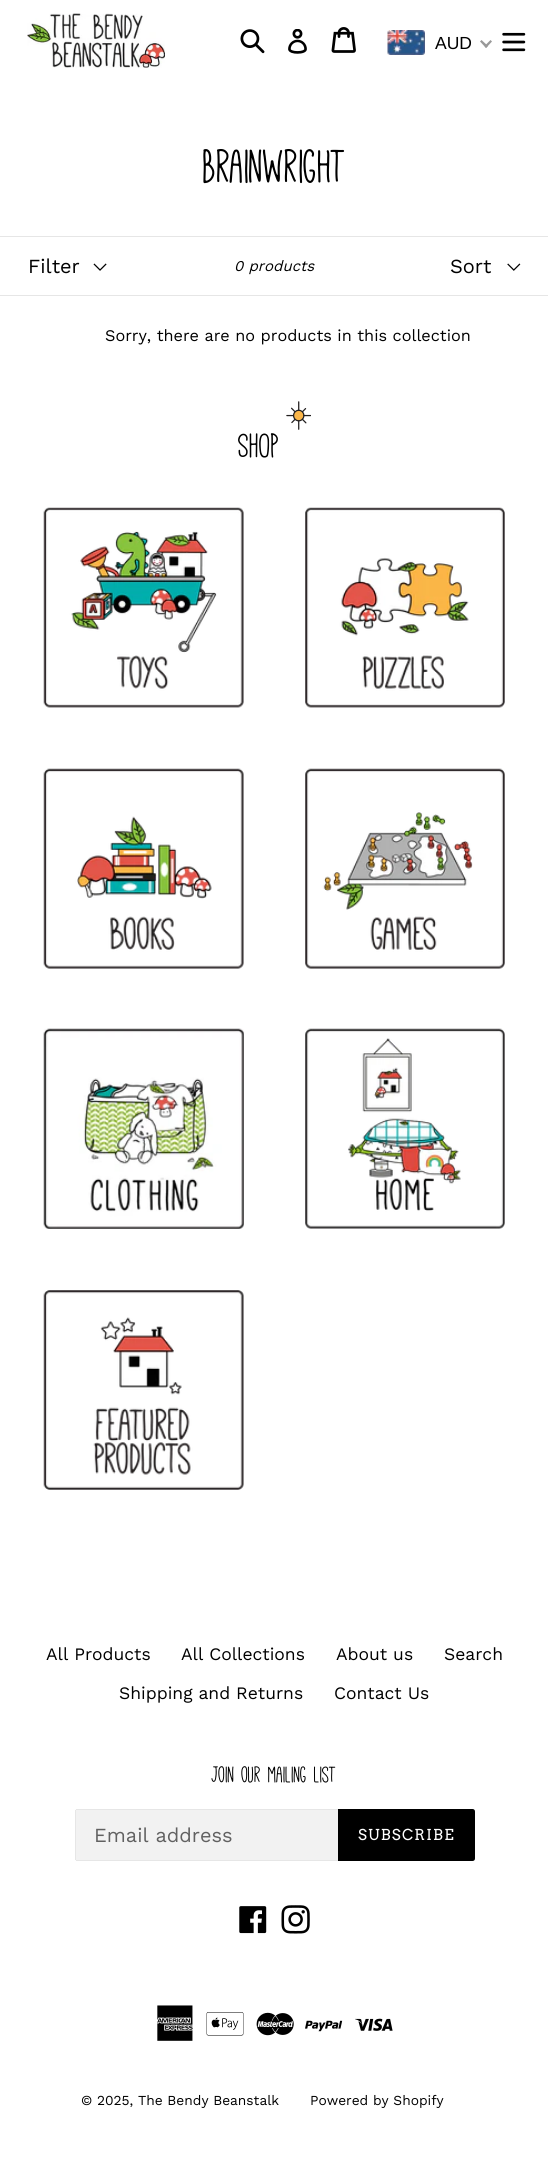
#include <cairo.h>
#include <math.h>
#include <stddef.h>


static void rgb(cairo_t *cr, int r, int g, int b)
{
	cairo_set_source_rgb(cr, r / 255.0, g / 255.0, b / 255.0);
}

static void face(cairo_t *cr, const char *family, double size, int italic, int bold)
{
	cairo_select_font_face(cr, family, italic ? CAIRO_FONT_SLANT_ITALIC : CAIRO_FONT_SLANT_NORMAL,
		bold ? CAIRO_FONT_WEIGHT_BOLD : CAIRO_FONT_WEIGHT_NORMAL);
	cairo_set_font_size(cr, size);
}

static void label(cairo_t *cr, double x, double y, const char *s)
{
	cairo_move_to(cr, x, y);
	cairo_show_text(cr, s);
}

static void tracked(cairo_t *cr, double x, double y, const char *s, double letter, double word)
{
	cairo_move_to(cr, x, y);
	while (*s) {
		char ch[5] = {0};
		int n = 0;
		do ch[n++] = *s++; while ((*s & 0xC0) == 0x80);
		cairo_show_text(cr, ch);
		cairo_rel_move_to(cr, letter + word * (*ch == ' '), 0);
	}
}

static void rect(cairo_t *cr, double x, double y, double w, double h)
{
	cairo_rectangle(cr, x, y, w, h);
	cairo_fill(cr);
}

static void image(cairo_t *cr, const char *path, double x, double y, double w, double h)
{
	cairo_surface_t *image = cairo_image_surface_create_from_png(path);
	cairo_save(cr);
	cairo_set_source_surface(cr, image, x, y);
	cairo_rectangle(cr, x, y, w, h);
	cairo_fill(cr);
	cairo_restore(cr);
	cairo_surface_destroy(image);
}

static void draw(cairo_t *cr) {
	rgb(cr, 255, 255, 255);
	cairo_paint(cr);
	image(cr, "image0.png", 27, 13, 138, 55);
	image(cr, "image1.png", 240, 29, 25, 25);
	image(cr, "image2.png", 288, 29, 19, 25);
	image(cr, "image3.png", 331, 27, 25, 26);
	image(cr, "image4.png", 387, 30, 38, 25);
	face(cr, "Liberation Sans", 17.5, 0, 0);
	rgb(cr, 0, 0, 0);
	label(cr, 435, 49, "AUD");
	rgb(cr, 153, 153, 153);
	cairo_new_path(cr);
	cairo_move_to(cr, 490.5, 40);
	cairo_line_to(cr, 492, 41.5);
	cairo_line_to(cr, 486, 48);
	cairo_line_to(cr, 484.5, 46);
	cairo_close_path(cr);
	cairo_fill(cr);
	cairo_new_path(cr);
	cairo_move_to(cr, 481.5, 40);
	cairo_line_to(cr, 488, 46);
	cairo_line_to(cr, 486, 48);
	cairo_line_to(cr, 480, 41.5);
	cairo_close_path(cr);
	cairo_fill(cr);
	image(cr, "image5.png", 502, 32, 24, 20);
	face(cr, "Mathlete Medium", 52.5, 0, 0);
	rgb(cr, 0, 0, 0);
	label(cr, 203, 182, "Brainwright");
	rgb(cr, 230, 230, 230);
	rect(cr, 0, 236, 548, 1);
	rect(cr, 0, 295, 548, 1);
	image(cr, "image6.png", 93, 263, 14, 8);
	face(cr, "Work Sans", 20, 0, 0);
	rgb(cr, 0, 0, 0);
	label(cr, 28, 273, "Filter");
	face(cr, "Work Sans", 15, 1, 0);
	label(cr, 234, 271, "0 products");
	image(cr, "image7.png", 507, 263, 14, 8);
	face(cr, "Work Sans", 20, 0, 0);
	label(cr, 450, 273, "Sort");
	face(cr, "Work Sans", 16.25, 0, 0);
	label(cr, 105, 341, "Sorry, there are no products in this collection");
	image(cr, "image8.png", 286, 401, 25, 29);
	face(cr, "Mathlete Medium", 38, 0, 0);
	tracked(cr, 238, 457, "SHOP", 1, 0);
	image(cr, "image9.png", 43, 507, 201, 201);
	image(cr, "image10.png", 305, 507, 200, 201);
	image(cr, "image11.png", 43, 768, 201, 201);
	image(cr, "image12.png", 305, 768, 200, 201);
	image(cr, "image13.png", 43, 1028, 201, 201);
	image(cr, "image14.png", 305, 1028, 200, 201);
	image(cr, "image15.png", 43, 1290, 201, 200);
	face(cr, "Work Sans", 17.5, 0, 0);
	label(cr, 46, 1660, "All Products");
	label(cr, 181, 1660, "All Collections");
	label(cr, 336, 1660, "About us");
	label(cr, 444, 1660, "Search");
	label(cr, 119, 1699, "Shipping and Returns");
	label(cr, 334, 1699, "Contact Us");
	face(cr, "Mathlete Medium", 25, 0, 0);
	label(cr, 212, 1782, "Join our mailing list");
	rgb(cr, 242, 242, 242);
	cairo_new_path(cr);
	cairo_move_to(cr, 77.5, 1809);
	cairo_line_to(cr, 338, 1809);
	cairo_line_to(cr, 338, 1861);
	cairo_line_to(cr, 77.5, 1861);
	cairo_curve_to(cr, 76, 1861, 75, 1860, 75, 1858.5);
	cairo_line_to(cr, 75, 1811.5);
	cairo_curve_to(cr, 75, 1810, 76, 1809, 77.5, 1809);
	cairo_close_path(cr);
	cairo_fill(cr);
	rgb(cr, 230, 230, 230);
	rect(cr, 76, 1809, 262, 1);
	rect(cr, 76, 1860, 262, 1);
	rect(cr, 75, 1810, 1, 50);
	face(cr, "Work Sans", 20, 0, 0);
	rgb(cr, 97, 97, 97);
	label(cr, 94, 1842, "Email address");
	rgb(cr, 0, 0, 0);
	cairo_new_path(cr);
	cairo_move_to(cr, 338, 1809);
	cairo_line_to(cr, 472.5, 1809);
	cairo_curve_to(cr, 474, 1809, 475, 1810, 475, 1811.5);
	cairo_line_to(cr, 475, 1858.5);
	cairo_curve_to(cr, 475, 1860, 474, 1861, 472.5, 1861);
	cairo_line_to(cr, 338, 1861);
	cairo_close_path(cr);
	cairo_fill(cr);
	face(cr, "Arvo", 15, 0, 0);
	rgb(cr, 255, 255, 255);
	tracked(cr, 358, 1840, "SUBSCRIBE", 1.25, 0);
	image(cr, "image16.png", 239, 1906, 28, 28);
	image(cr, "image17.png", 281, 1905, 29, 29);
	image(cr, "image18.png", 157, 2005, 36, 36);
	image(cr, "image19.png", 206, 2012, 38, 24);
	image(cr, "image20.png", 256, 2012, 38, 24);
	image(cr, "image21.png", 305, 2020, 38, 12);
	image(cr, "image22.png", 355, 2018, 38, 13);
	face(cr, "Work Sans", 13.75, 0, 0);
	rgb(cr, 0, 0, 0);
	label(cr, 81, 2105, "© 2025, The Bendy Beanstalk");
	label(cr, 310, 2105, "Powered by Shopify");
}

int main(void) {
	cairo_surface_t *surface = cairo_image_surface_create(CAIRO_FORMAT_RGB24, 548, 2160);
	cairo_t *cr = cairo_create(surface);
	cairo_font_options_t *options = cairo_font_options_create();
	cairo_font_options_set_hint_metrics(options, CAIRO_HINT_METRICS_OFF);
	cairo_font_options_set_hint_style(options, CAIRO_HINT_STYLE_NONE);
	cairo_set_font_options(cr, options);
	cairo_set_miter_limit(cr, 4);
	draw(cr);
	cairo_surface_write_to_png(surface, "render.png");
	cairo_font_options_destroy(options);
	cairo_destroy(cr);
	cairo_surface_destroy(surface);
	return 0;
}
